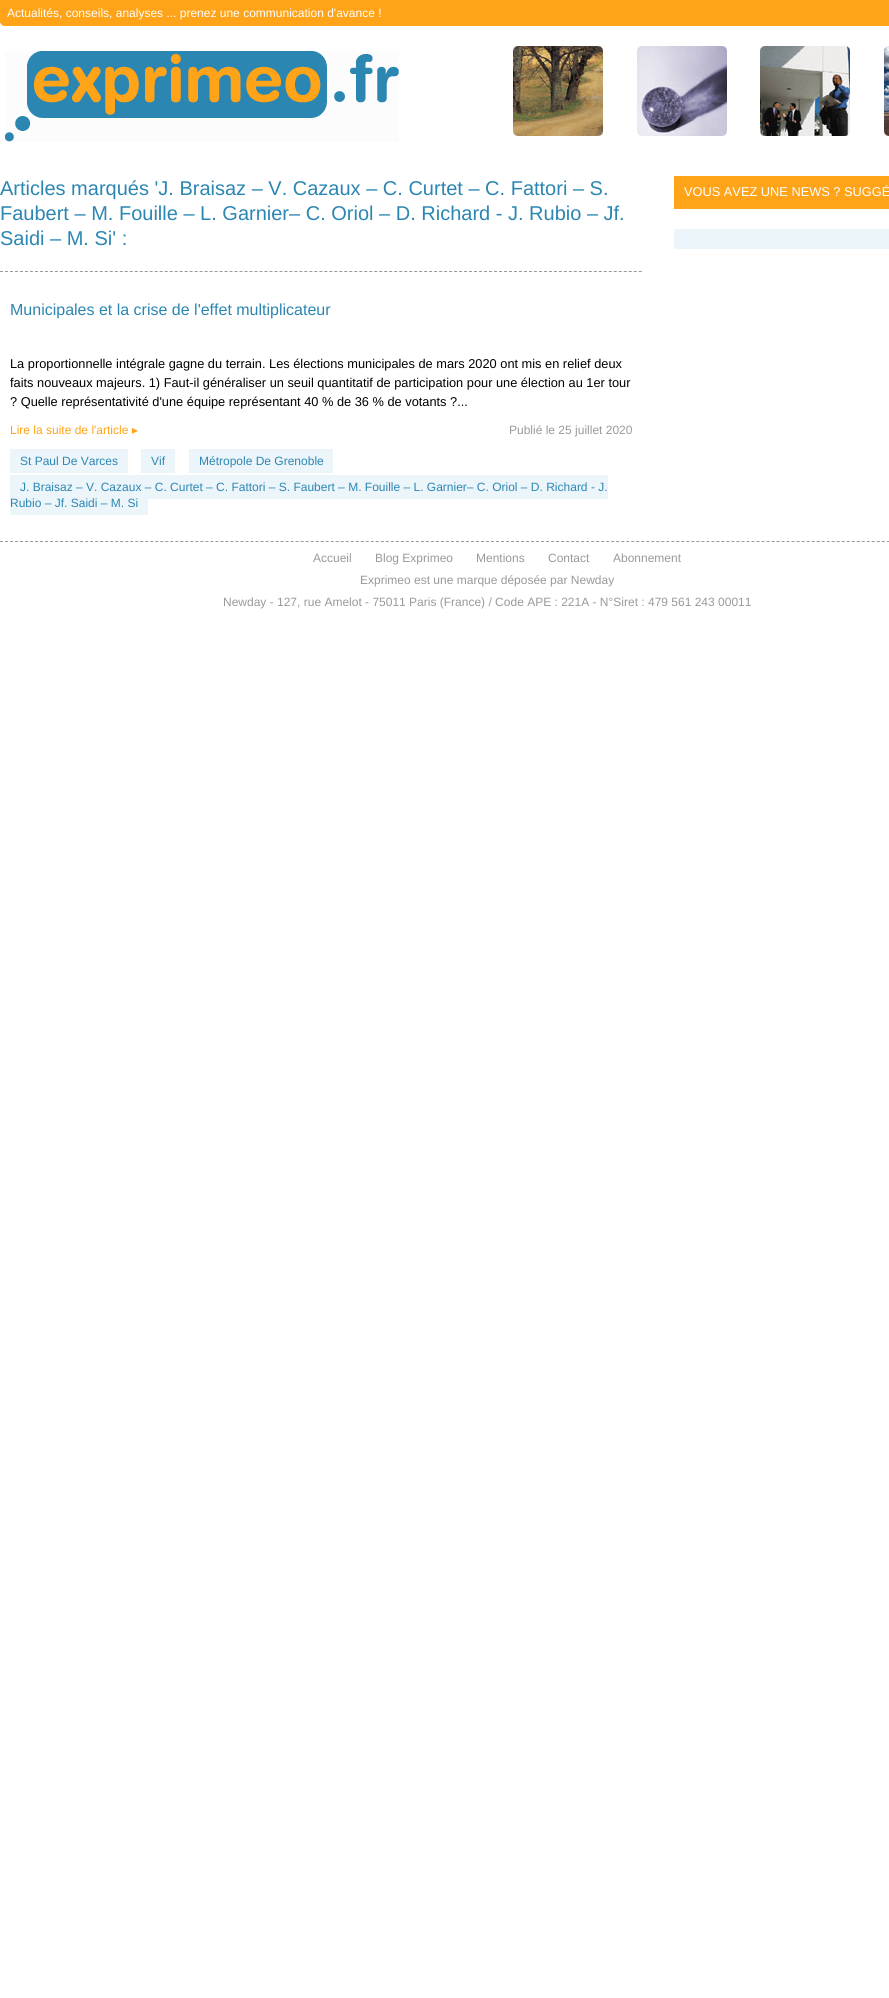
#include <cairo.h>
#include <math.h>
#include <stddef.h>


static void rgb(cairo_t *cr, int r, int g, int b)
{
	cairo_set_source_rgb(cr, r / 255.0, g / 255.0, b / 255.0);
}

static void face(cairo_t *cr, const char *family, double size, int italic, int bold)
{
	cairo_select_font_face(cr, family, italic ? CAIRO_FONT_SLANT_ITALIC : CAIRO_FONT_SLANT_NORMAL,
		bold ? CAIRO_FONT_WEIGHT_BOLD : CAIRO_FONT_WEIGHT_NORMAL);
	cairo_set_font_size(cr, size);
}

static void label(cairo_t *cr, double x, double y, const char *s)
{
	cairo_move_to(cr, x, y);
	cairo_show_text(cr, s);
}

static void rect(cairo_t *cr, double x, double y, double w, double h)
{
	cairo_rectangle(cr, x, y, w, h);
	cairo_fill(cr);
}

static void image(cairo_t *cr, const char *path, double x, double y, double w, double h)
{
	cairo_surface_t *image = cairo_image_surface_create_from_png(path);
	cairo_save(cr);
	cairo_set_source_surface(cr, image, x, y);
	cairo_rectangle(cr, x, y, w, h);
	cairo_fill(cr);
	cairo_restore(cr);
	cairo_surface_destroy(image);
}

static void draw(cairo_t *cr) {
	rgb(cr, 255, 255, 255);
	cairo_paint(cr);
	rgb(cr, 255, 163, 25);
	cairo_new_path(cr);
	cairo_move_to(cr, 0, 0);
	cairo_line_to(cr, 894, 0);
	cairo_line_to(cr, 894, 21);
	cairo_curve_to(cr, 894, 24, 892, 26, 889, 26);
	cairo_line_to(cr, 5, 26);
	cairo_curve_to(cr, 2, 26, 0, 24, 0, 21);
	cairo_close_path(cr);
	cairo_fill(cr);
	face(cr, "Liberation Sans", 12, 0, 0);
	rgb(cr, 255, 255, 255);
	label(cr, 7, 17, "Actualités, conseils, analyses ... prenez une communication d'avance !");
	image(cr, "image0.png", 5, 51, 394, 91);
	image(cr, "image1.png", 513, 46, 90, 90);
	image(cr, "image2.png", 637, 46, 90, 90);
	image(cr, "image3.png", 760, 46, 90, 90);
	image(cr, "image4.png", 884, 46, 5, 90);
	face(cr, "Liberation Sans", 20, 0, 0);
	rgb(cr, 44, 134, 178);
	label(cr, 0, 195, "Articles marqués 'J. Braisaz – V. Cazaux – C. Curtet – C. Fattori – S.");
	label(cr, 0, 220, "Faubert – M. Fouille – L. Garnier– C. Oriol – D. Richard - J. Rubio – Jf.");
	label(cr, 0, 245, "Saidi – M. Si' :");
	cairo_new_path(cr);
	cairo_move_to(cr, 0, 271.5);
	cairo_line_to(cr, 642, 271.5);
	rgb(cr, 153, 153, 153);
	cairo_set_line_width(cr, 1);
	cairo_set_dash(cr, (double[]){3, 1.99}, 2, 0);
	cairo_stroke(cr);
	face(cr, "Liberation Sans", 16, 0, 0);
	rgb(cr, 44, 134, 178);
	label(cr, 10, 315, "Municipales et la crise de l'effet multiplicateur");
	face(cr, "Liberation Sans", 12.8, 0, 0);
	rgb(cr, 0, 0, 0);
	label(cr, 10, 368, "La proportionnelle intégrale gagne du terrain. Les élections municipales de mars 2020 ont mis en relief deux");
	label(cr, 10, 387, "faits nouveaux majeurs. 1) Faut-il généraliser un seuil quantitatif de participation pour une élection au 1er tour");
	label(cr, 10, 406, "? Quelle représentativité d'une équipe représentant 40 % de 36 % de votants ?...");
	face(cr, "Liberation Sans", 12, 0, 0);
	rgb(cr, 255, 163, 25);
	label(cr, 10, 434, "Lire la suite de l'article");
	face(cr, "DejaVu Sans", 12, 0, 0);
	label(cr, 132, 434, "▸");
	face(cr, "Liberation Sans", 12, 0, 0);
	rgb(cr, 153, 153, 153);
	label(cr, 509, 434, "Publié le 25 juillet 2020");
	rgb(cr, 236, 245, 250);
	rect(cr, 10, 449, 118, 24);
	rgb(cr, 44, 134, 178);
	label(cr, 20, 465, "St Paul De Varces");
	rgb(cr, 236, 245, 250);
	rect(cr, 141, 449, 34, 24);
	rgb(cr, 44, 134, 178);
	label(cr, 151, 465, "Vif");
	rgb(cr, 236, 245, 250);
	rect(cr, 189, 449, 144, 24);
	rgb(cr, 44, 134, 178);
	label(cr, 199, 465, "Métropole De Grenoble");
	rgb(cr, 236, 245, 250);
	rect(cr, 10, 475, 598, 24);
	rgb(cr, 44, 134, 178);
	label(cr, 20, 491, "J. Braisaz – V. Cazaux – C. Curtet – C. Fattori – S. Faubert – M. Fouille – L. Garnier– C. Oriol – D. Richard - J.");
	rgb(cr, 236, 245, 250);
	rect(cr, 10, 499, 138, 16);
	rgb(cr, 44, 134, 178);
	label(cr, 10, 507, "Rubio – Jf. Saidi – M. Si");
	rgb(cr, 255, 163, 25);
	rect(cr, 674, 176, 215, 33);
	face(cr, "Liberation Sans", 12.8, 0, 0);
	rgb(cr, 255, 255, 255);
	label(cr, 684, 196, "VOUS AVEZ UNE NEWS ? SUGGÉ");
	rgb(cr, 236, 245, 250);
	rect(cr, 674, 229, 215, 20);
	cairo_new_path(cr);
	cairo_move_to(cr, 0, 541.5);
	cairo_line_to(cr, 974, 541.5);
	rgb(cr, 153, 153, 153);
	cairo_set_dash(cr, (double[]){3, 2.01}, 2, 0);
	cairo_stroke(cr);
	face(cr, "Liberation Sans", 12, 0, 0);
	label(cr, 313, 562, "Accueil");
	label(cr, 375, 562, "Blog Exprimeo");
	label(cr, 476, 562, "Mentions");
	label(cr, 548, 562, "Contact");
	label(cr, 613, 562, "Abonnement");
	label(cr, 360, 584, "Exprimeo est une marque déposée par Newday");
	label(cr, 223, 606, "Newday - 127, rue Amelot - 75011 Paris (France) / Code APE : 221A - N°Siret : 479 561 243 00011");
}

int main(void) {
	cairo_surface_t *surface = cairo_image_surface_create(CAIRO_FORMAT_RGB24, 889, 1998);
	cairo_t *cr = cairo_create(surface);
	cairo_font_options_t *options = cairo_font_options_create();
	cairo_font_options_set_hint_metrics(options, CAIRO_HINT_METRICS_OFF);
	cairo_font_options_set_hint_style(options, CAIRO_HINT_STYLE_NONE);
	cairo_set_font_options(cr, options);
	cairo_set_miter_limit(cr, 4);
	draw(cr);
	cairo_surface_write_to_png(surface, "render.png");
	cairo_font_options_destroy(options);
	cairo_destroy(cr);
	cairo_surface_destroy(surface);
	return 0;
}
